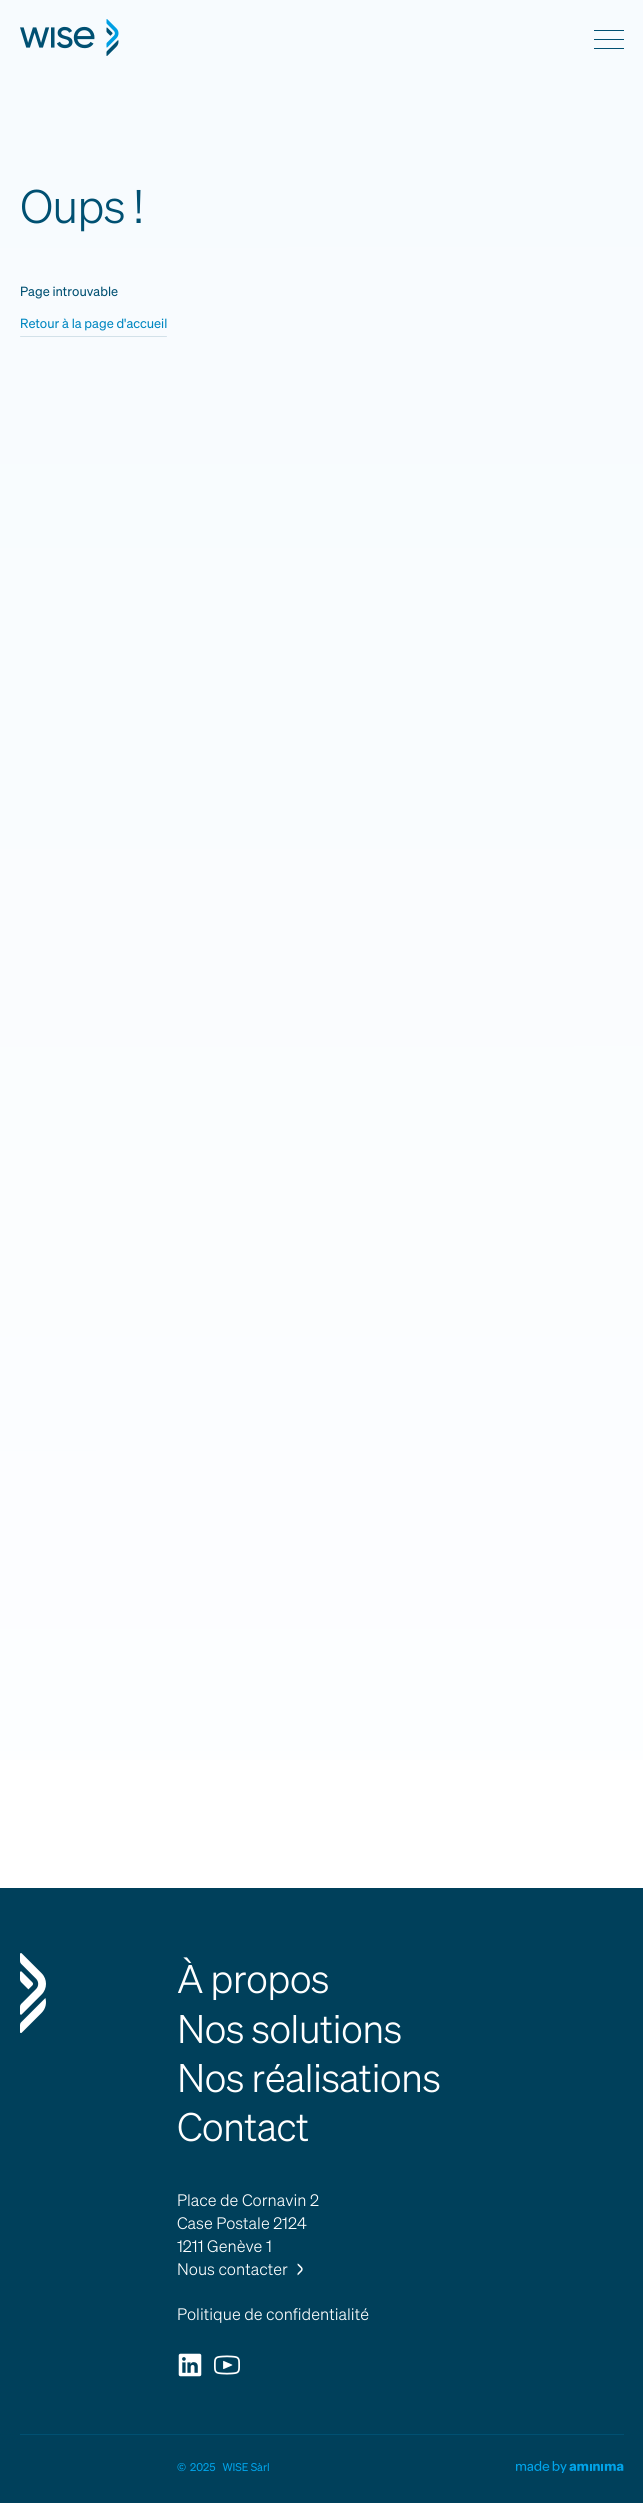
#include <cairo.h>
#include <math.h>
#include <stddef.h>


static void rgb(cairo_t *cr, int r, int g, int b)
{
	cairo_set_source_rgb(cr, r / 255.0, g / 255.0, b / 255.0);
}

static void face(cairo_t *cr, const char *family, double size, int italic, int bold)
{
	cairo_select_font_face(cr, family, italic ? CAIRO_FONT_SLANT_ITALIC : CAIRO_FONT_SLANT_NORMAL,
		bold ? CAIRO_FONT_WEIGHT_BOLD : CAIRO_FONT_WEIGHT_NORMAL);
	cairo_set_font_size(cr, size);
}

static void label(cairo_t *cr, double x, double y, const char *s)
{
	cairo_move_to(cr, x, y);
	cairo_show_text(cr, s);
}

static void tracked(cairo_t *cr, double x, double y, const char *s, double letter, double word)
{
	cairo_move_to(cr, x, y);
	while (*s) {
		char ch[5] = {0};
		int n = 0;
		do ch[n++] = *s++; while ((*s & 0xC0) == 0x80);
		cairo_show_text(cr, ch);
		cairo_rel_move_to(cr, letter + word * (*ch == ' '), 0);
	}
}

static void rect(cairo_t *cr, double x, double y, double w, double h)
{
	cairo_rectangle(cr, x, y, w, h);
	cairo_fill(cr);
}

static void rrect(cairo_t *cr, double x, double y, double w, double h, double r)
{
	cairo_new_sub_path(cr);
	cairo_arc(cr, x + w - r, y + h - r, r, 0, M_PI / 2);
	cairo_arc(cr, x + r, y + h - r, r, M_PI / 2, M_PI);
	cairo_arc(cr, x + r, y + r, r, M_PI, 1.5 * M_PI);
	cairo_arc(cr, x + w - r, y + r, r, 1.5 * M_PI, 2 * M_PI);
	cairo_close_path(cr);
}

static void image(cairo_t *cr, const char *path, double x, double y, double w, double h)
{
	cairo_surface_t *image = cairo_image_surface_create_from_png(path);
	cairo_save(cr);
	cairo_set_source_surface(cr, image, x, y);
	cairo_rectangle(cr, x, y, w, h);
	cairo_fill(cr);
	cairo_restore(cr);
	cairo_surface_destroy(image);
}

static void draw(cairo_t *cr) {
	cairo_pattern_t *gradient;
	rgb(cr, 255, 255, 255);
	cairo_paint(cr);
	gradient = cairo_pattern_create_linear(321, 0, 322, 2503);
	cairo_pattern_add_color_stop_rgba(gradient, 0, 0.969, 0.984, 0.996, 1);
	cairo_pattern_add_color_stop_rgba(gradient, 0.05, 0.969, 0.984, 0.996, 1);
	cairo_pattern_add_color_stop_rgba(gradient, 1, 1, 1, 1, 1);
	cairo_set_source(cr, gradient);
	cairo_pattern_destroy(gradient);
	rect(cr, 0, 0, 643, 1760);
	image(cr, "image0.png", 20, 19, 99, 37);
	rgb(cr, 0, 80, 114);
	rect(cr, 594, 30, 30, 1);
	rect(cr, 594, 39, 30, 1);
	rect(cr, 594, 48, 30, 1);
	face(cr, "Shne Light", 46, 0, 0);
	tracked(cr, 20, 223, "Oups !", -1, 0);
	face(cr, "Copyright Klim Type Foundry", 13, 0, 0);
	label(cr, 20, 296, "Page introuvable");
	rgb(cr, 0, 135, 193);
	label(cr, 20, 328, "Retour à la page d'accueil");
	rgb(cr, 211, 225, 233);
	rrect(cr, 20, 336, 147, 1, 0.5);
	cairo_fill(cr);
	rgb(cr, 0, 64, 91);
	rect(cr, 0, 1888, 643, 615);
	image(cr, "image1.png", 20, 1953, 26, 80);
	face(cr, "Shne Light", 39, 0, 0);
	rgb(cr, 255, 255, 255);
	tracked(cr, 177, 1993, "À propos", -0.75, 0);
	tracked(cr, 177, 2043, "Nos solutions", -0.75, 0);
	tracked(cr, 177, 2092, "Nos réalisations", -0.75, 0);
	tracked(cr, 177, 2141, "Contact", -0.75, 0);
	face(cr, "Shne Light", 16.25, 0, 0);
	label(cr, 177, 2206, "Place de Cornavin 2");
	label(cr, 177, 2229, "Case Postale 2124");
	label(cr, 177, 2252, "1211 Genève 1");
	label(cr, 177, 2275, "Nous contacter");
	image(cr, "image2.png", 297, 2263, 6, 13);
	label(cr, 177, 2320, "Politique de confidentialité");
	image(cr, "image3.png", 178, 2353, 24, 24);
	image(cr, "image4.png", 214, 2355, 26, 20);
	rgb(cr, 0, 80, 114);
	rect(cr, 20, 2434, 604, 1);
	face(cr, "Copyright Klim Type Foundry", 11, 0, 0);
	rgb(cr, 0, 163, 232);
	label(cr, 177, 2471, "©");
	label(cr, 190, 2471, "2025   WISE Sàrl");
	image(cr, "image5.png", 516, 2461, 108, 12);
}

int main(void) {
	cairo_surface_t *surface = cairo_image_surface_create(CAIRO_FORMAT_RGB24, 643, 2503);
	cairo_t *cr = cairo_create(surface);
	cairo_font_options_t *options = cairo_font_options_create();
	cairo_font_options_set_hint_metrics(options, CAIRO_HINT_METRICS_OFF);
	cairo_font_options_set_hint_style(options, CAIRO_HINT_STYLE_NONE);
	cairo_set_font_options(cr, options);
	cairo_set_miter_limit(cr, 4);
	draw(cr);
	cairo_surface_write_to_png(surface, "render.png");
	cairo_font_options_destroy(options);
	cairo_destroy(cr);
	cairo_surface_destroy(surface);
	return 0;
}
